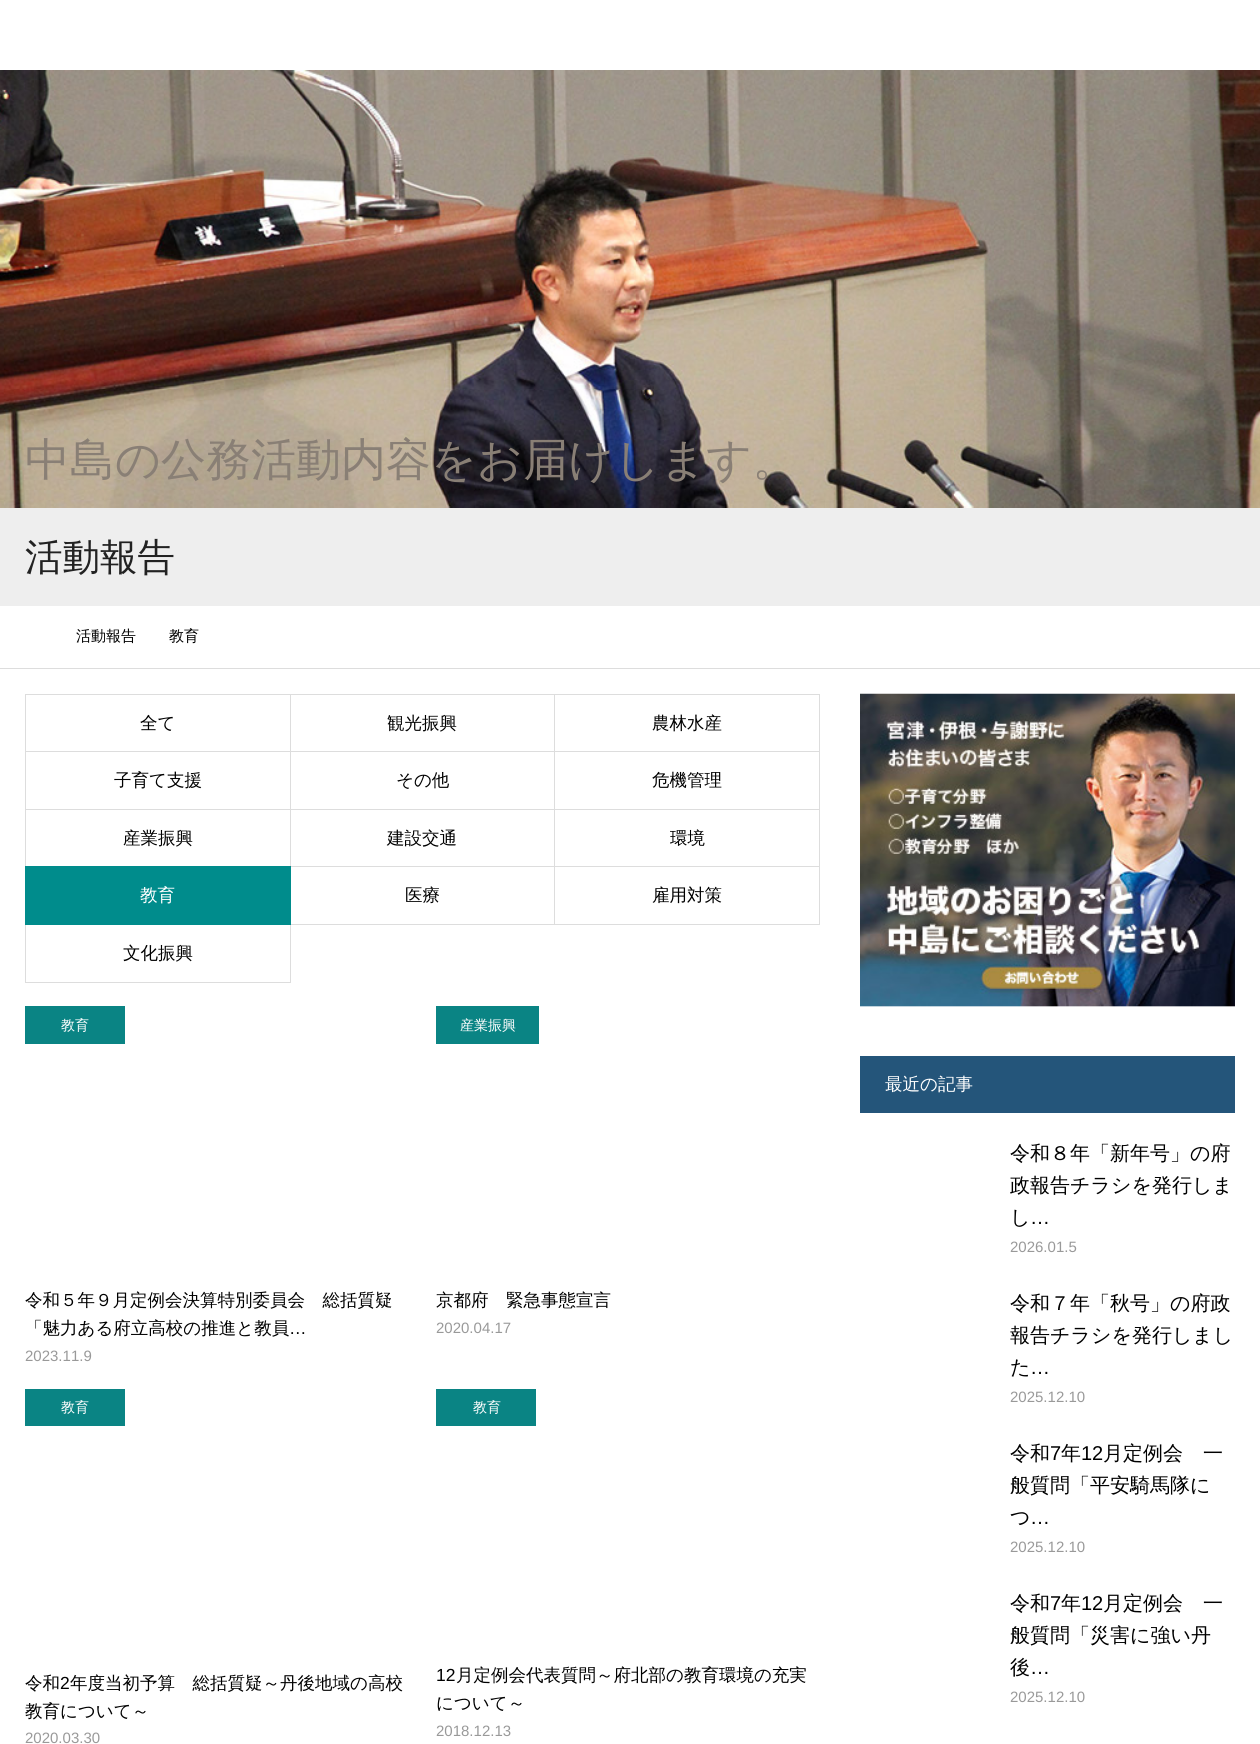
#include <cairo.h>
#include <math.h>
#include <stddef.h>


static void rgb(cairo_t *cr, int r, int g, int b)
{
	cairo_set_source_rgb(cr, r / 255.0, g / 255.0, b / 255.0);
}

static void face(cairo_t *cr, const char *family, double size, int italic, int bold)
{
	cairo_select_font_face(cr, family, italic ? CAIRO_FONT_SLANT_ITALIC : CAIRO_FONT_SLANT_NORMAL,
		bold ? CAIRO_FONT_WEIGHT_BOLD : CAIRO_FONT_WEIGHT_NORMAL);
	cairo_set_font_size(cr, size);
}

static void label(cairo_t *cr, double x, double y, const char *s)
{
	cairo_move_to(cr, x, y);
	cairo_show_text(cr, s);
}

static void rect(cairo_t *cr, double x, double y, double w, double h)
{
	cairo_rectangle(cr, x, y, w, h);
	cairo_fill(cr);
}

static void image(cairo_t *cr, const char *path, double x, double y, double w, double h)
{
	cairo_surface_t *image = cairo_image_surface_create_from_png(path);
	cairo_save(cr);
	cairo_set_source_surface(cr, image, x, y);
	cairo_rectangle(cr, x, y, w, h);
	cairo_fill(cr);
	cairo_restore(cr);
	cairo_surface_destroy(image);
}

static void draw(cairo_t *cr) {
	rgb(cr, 255, 255, 255);
	cairo_paint(cr);
	image(cr, "image0.png", 0, 70, 1260, 438);
	face(cr, "WenQuanYi Zen Hei Medium", 45, 0, 0);
	rgb(cr, 137, 127, 117);
	label(cr, 25, 475, "中島の公務活動内容をお届けします。");
	rgb(cr, 238, 238, 238);
	rect(cr, 0, 508, 1260, 98);
	face(cr, "WenQuanYi Zen Hei Medium", 37.5, 0, 0);
	rgb(cr, 34, 34, 34);
	label(cr, 25, 570, "活動報告");
	rgb(cr, 221, 221, 221);
	rect(cr, 0, 668, 1260, 1);
	face(cr, "WenQuanYi Zen Hei Medium", 15, 0, 0);
	rgb(cr, 0, 0, 0);
	label(cr, 76, 641, "活動報告");
	label(cr, 169, 641, "教育");
	cairo_rectangle(cr, 25.5, 694.5, 265, 58);
	rgb(cr, 221, 221, 221);
	cairo_set_line_width(cr, 1);
	cairo_stroke(cr);
	face(cr, "WenQuanYi Zen Hei Medium", 17.5, 0, 0);
	rgb(cr, 0, 0, 0);
	label(cr, 140, 729, "全て");
	cairo_rectangle(cr, 290.5, 694.5, 264, 58);
	rgb(cr, 221, 221, 221);
	cairo_stroke(cr);
	rgb(cr, 0, 0, 0);
	label(cr, 387, 729, "観光振興");
	cairo_rectangle(cr, 554.5, 694.5, 265, 58);
	rgb(cr, 221, 221, 221);
	cairo_stroke(cr);
	rgb(cr, 0, 0, 0);
	label(cr, 652, 729, "農林水産");
	rgb(cr, 255, 255, 255);
	rect(cr, 26, 752, 264, 1);
	cairo_rectangle(cr, 25.5, 751.5, 265, 58);
	rgb(cr, 221, 221, 221);
	cairo_stroke(cr);
	rgb(cr, 0, 0, 0);
	label(cr, 114, 786, "子育て支援");
	rgb(cr, 255, 255, 255);
	rect(cr, 291, 752, 263, 1);
	cairo_rectangle(cr, 290.5, 751.5, 264, 58);
	rgb(cr, 221, 221, 221);
	cairo_stroke(cr);
	rgb(cr, 0, 0, 0);
	label(cr, 396, 786, "その他");
	rgb(cr, 255, 255, 255);
	rect(cr, 555, 752, 264, 1);
	cairo_rectangle(cr, 554.5, 751.5, 265, 58);
	rgb(cr, 221, 221, 221);
	cairo_stroke(cr);
	rgb(cr, 0, 0, 0);
	label(cr, 652, 786, "危機管理");
	cairo_rectangle(cr, 25.5, 809.5, 265, 58);
	rgb(cr, 221, 221, 221);
	cairo_stroke(cr);
	rgb(cr, 0, 0, 0);
	label(cr, 123, 844, "産業振興");
	cairo_rectangle(cr, 290.5, 809.5, 264, 58);
	rgb(cr, 221, 221, 221);
	cairo_stroke(cr);
	rgb(cr, 0, 0, 0);
	label(cr, 387, 844, "建設交通");
	cairo_rectangle(cr, 554.5, 809.5, 265, 58);
	rgb(cr, 221, 221, 221);
	cairo_stroke(cr);
	rgb(cr, 0, 0, 0);
	label(cr, 670, 844, "環境");
	rgb(cr, 255, 255, 255);
	rect(cr, 291, 867, 263, 1);
	cairo_rectangle(cr, 290.5, 866.5, 264, 58);
	rgb(cr, 221, 221, 221);
	cairo_stroke(cr);
	cairo_rectangle(cr, 25.5, 924.5, 265, 58);
	cairo_stroke(cr);
	rgb(cr, 0, 140, 140);
	rect(cr, 25, 866, 266, 59);
	rgb(cr, 255, 255, 255);
	label(cr, 140, 901, "教育");
	rgb(cr, 0, 0, 0);
	label(cr, 405, 901, "医療");
	rgb(cr, 255, 255, 255);
	rect(cr, 555, 867, 264, 1);
	cairo_rectangle(cr, 554.5, 866.5, 265, 58);
	rgb(cr, 221, 221, 221);
	cairo_stroke(cr);
	rgb(cr, 0, 0, 0);
	label(cr, 652, 901, "雇用対策");
	label(cr, 123, 959, "文化振興");
	rgb(cr, 10, 132, 132);
	rect(cr, 25, 1006, 100, 38);
	face(cr, "WenQuanYi Zen Hei Medium", 14, 0, 0);
	rgb(cr, 255, 255, 255);
	label(cr, 61, 1030, "教育");
	face(cr, "WenQuanYi Zen Hei Medium", 17.5, 0, 0);
	rgb(cr, 0, 0, 0);
	label(cr, 25, 1306, "令和５年９月定例会決算特別委員会　総括質疑");
	label(cr, 25, 1334, "「魅力ある府立高校の推進と教員");
	face(cr, "Liberation Sans", 17.5, 0, 0);
	label(cr, 289, 1334, "…");
	face(cr, "Liberation Sans", 15, 0, 0);
	rgb(cr, 153, 153, 153);
	label(cr, 25, 1361, "2023.11.9");
	rgb(cr, 10, 132, 132);
	rect(cr, 436, 1006, 103, 38);
	face(cr, "WenQuanYi Zen Hei Medium", 14, 0, 0);
	rgb(cr, 255, 255, 255);
	label(cr, 460, 1030, "産業振興");
	face(cr, "WenQuanYi Zen Hei Medium", 17.5, 0, 0);
	rgb(cr, 0, 0, 0);
	label(cr, 436, 1306, "京都府　緊急事態宣言");
	face(cr, "Liberation Sans", 15, 0, 0);
	rgb(cr, 153, 153, 153);
	label(cr, 436, 1333, "2020.04.17");
	rgb(cr, 10, 132, 132);
	rect(cr, 25, 1389, 100, 37);
	face(cr, "WenQuanYi Zen Hei Medium", 14, 0, 0);
	rgb(cr, 255, 255, 255);
	label(cr, 61, 1412, "教育");
	face(cr, "WenQuanYi Zen Hei Medium", 17.5, 0, 0);
	rgb(cr, 0, 0, 0);
	label(cr, 25, 1689, "令和");
	face(cr, "Liberation Sans", 17.5, 0, 0);
	label(cr, 60, 1689, "2");
	face(cr, "WenQuanYi Zen Hei Medium", 17.5, 0, 0);
	label(cr, 70, 1689, "年度当初予算　総括質疑～丹後地域の高校");
	label(cr, 25, 1717, "教育について～");
	face(cr, "Liberation Sans", 15, 0, 0);
	rgb(cr, 153, 153, 153);
	label(cr, 25, 1743, "2020.03.30");
	rgb(cr, 10, 132, 132);
	rect(cr, 436, 1389, 100, 37);
	face(cr, "WenQuanYi Zen Hei Medium", 14, 0, 0);
	rgb(cr, 255, 255, 255);
	label(cr, 473, 1412, "教育");
	face(cr, "Liberation Sans", 17.5, 0, 0);
	rgb(cr, 0, 0, 0);
	label(cr, 436, 1681, "12");
	face(cr, "WenQuanYi Zen Hei Medium", 17.5, 0, 0);
	label(cr, 456, 1681, "月定例会代表質問～府北部の教育環境の充実");
	label(cr, 436, 1709, "について～");
	face(cr, "Liberation Sans", 15, 0, 0);
	rgb(cr, 153, 153, 153);
	label(cr, 436, 1736, "2018.12.13");
	image(cr, "image1.png", 860, 693, 375, 314);
	rgb(cr, 36, 85, 122);
	rect(cr, 860, 1056, 375, 57);
	face(cr, "WenQuanYi Zen Hei Medium", 17.5, 0, 0);
	rgb(cr, 255, 255, 255);
	label(cr, 885, 1090, "最近の記事");
	face(cr, "WenQuanYi Zen Hei Medium", 20, 0, 0);
	rgb(cr, 0, 0, 0);
	label(cr, 1010, 1160, "令和８年「新年号」の府");
	label(cr, 1010, 1192, "政報告チラシを発行しま");
	label(cr, 1010, 1224, "し");
	face(cr, "Liberation Sans", 20, 0, 0);
	label(cr, 1030, 1224, "…");
	face(cr, "Liberation Sans", 15, 0, 0);
	rgb(cr, 153, 153, 153);
	label(cr, 1010, 1252, "2026.01.5");
	face(cr, "WenQuanYi Zen Hei Medium", 20, 0, 0);
	rgb(cr, 0, 0, 0);
	label(cr, 1010, 1310, "令和７年「秋号」の府政");
	label(cr, 1010, 1342, "報告チラシを発行しまし");
	label(cr, 1010, 1374, "た");
	face(cr, "Liberation Sans", 20, 0, 0);
	label(cr, 1030, 1374, "…");
	face(cr, "Liberation Sans", 15, 0, 0);
	rgb(cr, 153, 153, 153);
	label(cr, 1010, 1402, "2025.12.10");
	face(cr, "WenQuanYi Zen Hei Medium", 20, 0, 0);
	rgb(cr, 0, 0, 0);
	label(cr, 1010, 1460, "令和");
	face(cr, "Liberation Sans", 20, 0, 0);
	label(cr, 1050, 1460, "7");
	face(cr, "WenQuanYi Zen Hei Medium", 20, 0, 0);
	label(cr, 1061, 1460, "年");
	face(cr, "Liberation Sans", 20, 0, 0);
	label(cr, 1081, 1460, "12");
	face(cr, "WenQuanYi Zen Hei Medium", 20, 0, 0);
	label(cr, 1103, 1460, "月定例会　一");
	label(cr, 1010, 1492, "般質問「平安騎馬隊に");
	label(cr, 1010, 1524, "つ");
	face(cr, "Liberation Sans", 20, 0, 0);
	label(cr, 1030, 1524, "…");
	face(cr, "Liberation Sans", 15, 0, 0);
	rgb(cr, 153, 153, 153);
	label(cr, 1010, 1552, "2025.12.10");
	face(cr, "WenQuanYi Zen Hei Medium", 20, 0, 0);
	rgb(cr, 0, 0, 0);
	label(cr, 1010, 1610, "令和");
	face(cr, "Liberation Sans", 20, 0, 0);
	label(cr, 1050, 1610, "7");
	face(cr, "WenQuanYi Zen Hei Medium", 20, 0, 0);
	label(cr, 1061, 1610, "年");
	face(cr, "Liberation Sans", 20, 0, 0);
	label(cr, 1081, 1610, "12");
	face(cr, "WenQuanYi Zen Hei Medium", 20, 0, 0);
	label(cr, 1103, 1610, "月定例会　一");
	label(cr, 1010, 1642, "般質問「災害に強い丹");
	label(cr, 1010, 1674, "後");
	face(cr, "Liberation Sans", 20, 0, 0);
	label(cr, 1030, 1674, "…");
	face(cr, "Liberation Sans", 15, 0, 0);
	rgb(cr, 153, 153, 153);
	label(cr, 1010, 1702, "2025.12.10");
}

int main(void) {
	cairo_surface_t *surface = cairo_image_surface_create(CAIRO_FORMAT_RGB24, 1260, 1744);
	cairo_t *cr = cairo_create(surface);
	cairo_font_options_t *options = cairo_font_options_create();
	cairo_font_options_set_hint_metrics(options, CAIRO_HINT_METRICS_OFF);
	cairo_font_options_set_hint_style(options, CAIRO_HINT_STYLE_NONE);
	cairo_set_font_options(cr, options);
	cairo_set_miter_limit(cr, 4);
	draw(cr);
	cairo_surface_write_to_png(surface, "render.png");
	cairo_font_options_destroy(options);
	cairo_destroy(cr);
	cairo_surface_destroy(surface);
	return 0;
}
